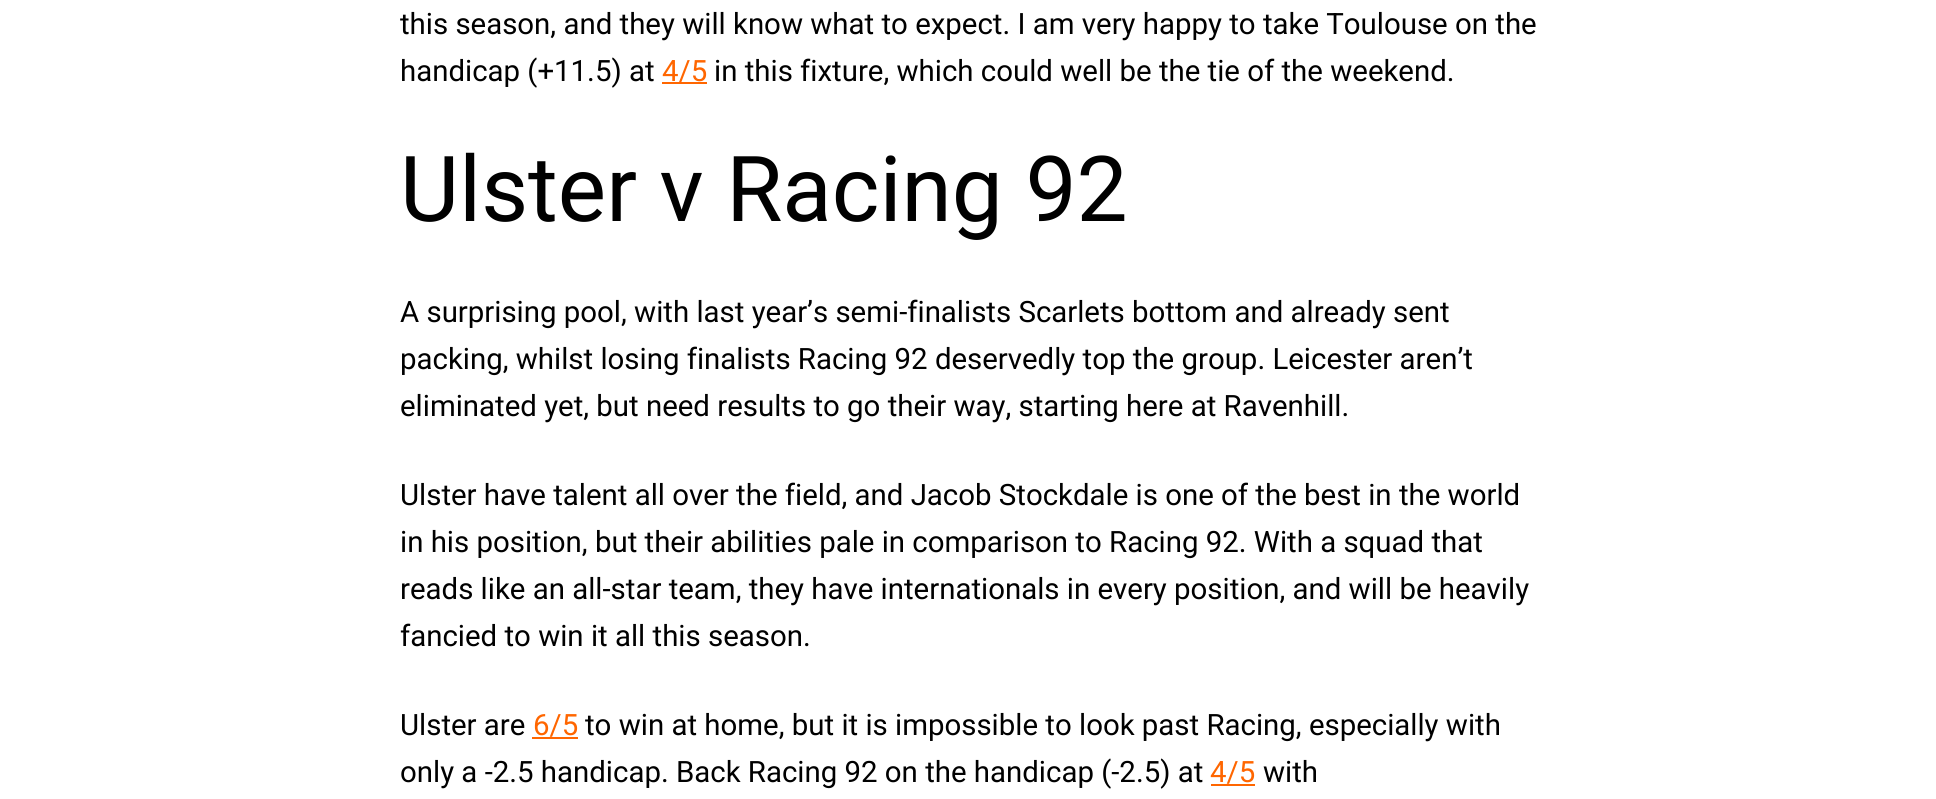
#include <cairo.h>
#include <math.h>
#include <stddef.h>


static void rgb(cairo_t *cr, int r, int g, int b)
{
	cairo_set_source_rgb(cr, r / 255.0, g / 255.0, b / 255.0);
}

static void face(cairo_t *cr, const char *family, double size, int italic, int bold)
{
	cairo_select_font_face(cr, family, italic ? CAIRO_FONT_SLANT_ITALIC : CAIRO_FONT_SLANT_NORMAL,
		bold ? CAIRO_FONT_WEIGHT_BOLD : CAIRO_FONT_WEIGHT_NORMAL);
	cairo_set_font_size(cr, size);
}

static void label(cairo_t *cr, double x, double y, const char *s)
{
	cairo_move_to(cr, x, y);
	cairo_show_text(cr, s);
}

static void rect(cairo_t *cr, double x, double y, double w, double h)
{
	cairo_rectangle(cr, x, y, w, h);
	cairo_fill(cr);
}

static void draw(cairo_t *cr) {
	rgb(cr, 255, 255, 255);
	cairo_paint(cr);
	face(cr, "Roboto", 29.4, 0, 0);
	rgb(cr, 0, 0, 0);
	label(cr, 400, 34, "this season, and they will know what to expect. I am very happy to take Toulouse on the");
	label(cr, 400, 81, "handicap (+11.5) at");
	rgb(cr, 255, 102, 0);
	rect(cr, 662, 82, 45, 2);
	label(cr, 662, 81, "4/5");
	rgb(cr, 0, 0, 0);
	label(cr, 714, 81, "in this fixture, which could well be the tie of the weekend.");
	face(cr, "Roboto", 91, 0, 0);
	label(cr, 400, 221, "Ulster v Racing 92");
	face(cr, "Roboto", 29.4, 0, 0);
	label(cr, 400, 322, "A surprising pool, with last year’s semi-finalists Scarlets bottom and already sent");
	label(cr, 400, 369, "packing, whilst losing finalists Racing 92 deservedly top the group. Leicester aren’t");
	label(cr, 400, 416, "eliminated yet, but need results to go their way, starting here at Ravenhill.");
	label(cr, 400, 505, "Ulster have talent all over the field, and Jacob Stockdale is one of the best in the world");
	label(cr, 400, 552, "in his position, but their abilities pale in comparison to Racing 92. With a squad that");
	label(cr, 400, 599, "reads like an all-star team, they have internationals in every position, and will be heavily");
	label(cr, 400, 646, "fancied to win it all this season.");
	label(cr, 400, 735, "Ulster are");
	rgb(cr, 255, 102, 0);
	label(cr, 533, 735, "6/5");
	rect(cr, 532, 737, 46, 2);
	rgb(cr, 0, 0, 0);
	label(cr, 585, 735, "to win at home, but it is impossible to look past Racing, especially with");
	label(cr, 400, 782, "only a -2.5 handicap. Back Racing 92 on the handicap (-2.5) at");
	rgb(cr, 255, 102, 0);
	label(cr, 1210, 782, "4/5");
	rect(cr, 1211, 784, 44, 2);
	rgb(cr, 0, 0, 0);
	label(cr, 1263, 782, "with");
}

int main(void) {
	cairo_surface_t *surface = cairo_image_surface_create(CAIRO_FORMAT_RGB24, 1936, 799);
	cairo_t *cr = cairo_create(surface);
	cairo_font_options_t *options = cairo_font_options_create();
	cairo_font_options_set_hint_metrics(options, CAIRO_HINT_METRICS_OFF);
	cairo_font_options_set_hint_style(options, CAIRO_HINT_STYLE_NONE);
	cairo_set_font_options(cr, options);
	cairo_set_miter_limit(cr, 4);
	draw(cr);
	cairo_surface_write_to_png(surface, "render.png");
	cairo_font_options_destroy(options);
	cairo_destroy(cr);
	cairo_surface_destroy(surface);
	return 0;
}
